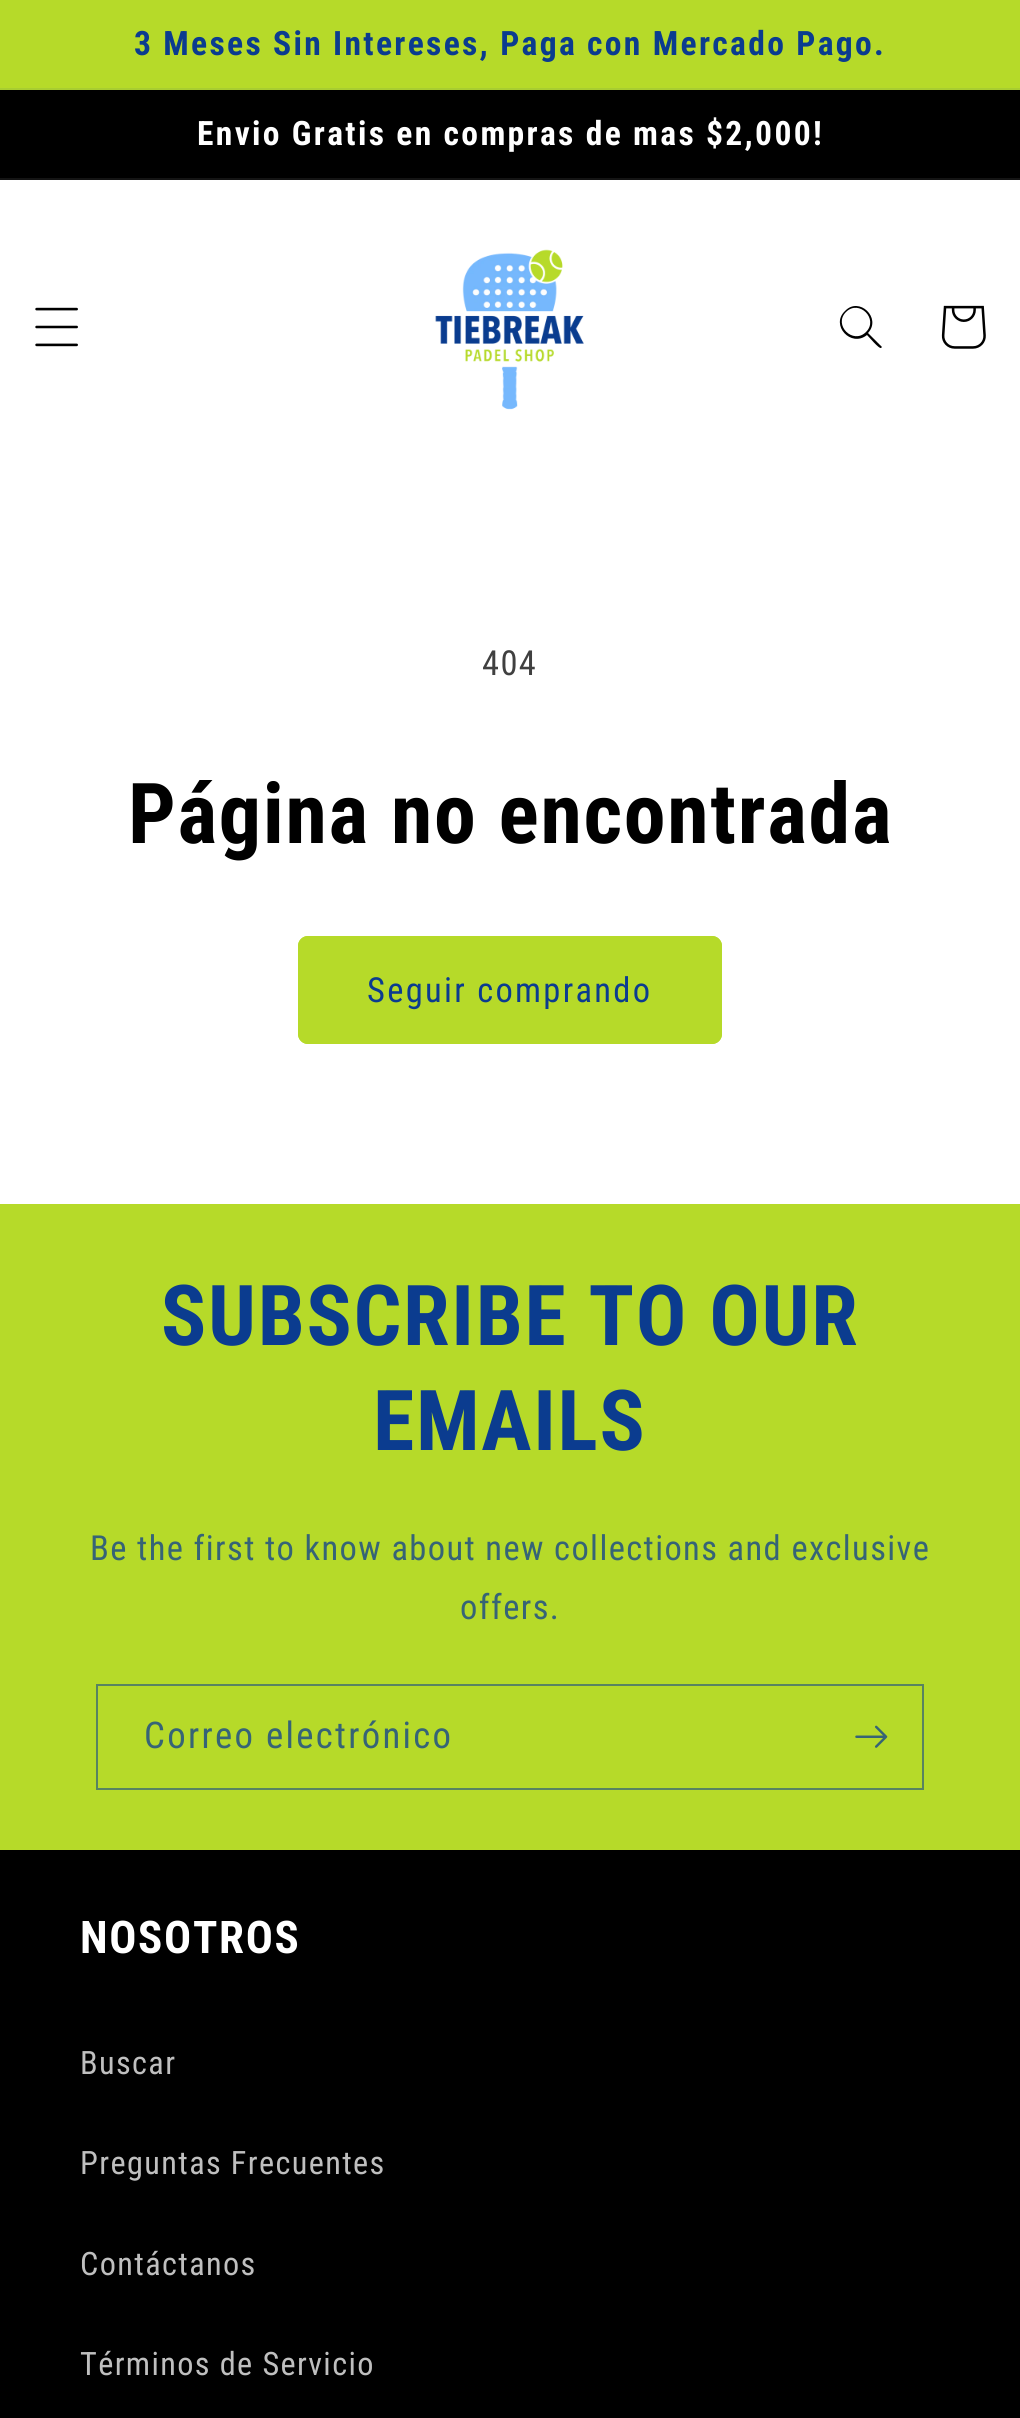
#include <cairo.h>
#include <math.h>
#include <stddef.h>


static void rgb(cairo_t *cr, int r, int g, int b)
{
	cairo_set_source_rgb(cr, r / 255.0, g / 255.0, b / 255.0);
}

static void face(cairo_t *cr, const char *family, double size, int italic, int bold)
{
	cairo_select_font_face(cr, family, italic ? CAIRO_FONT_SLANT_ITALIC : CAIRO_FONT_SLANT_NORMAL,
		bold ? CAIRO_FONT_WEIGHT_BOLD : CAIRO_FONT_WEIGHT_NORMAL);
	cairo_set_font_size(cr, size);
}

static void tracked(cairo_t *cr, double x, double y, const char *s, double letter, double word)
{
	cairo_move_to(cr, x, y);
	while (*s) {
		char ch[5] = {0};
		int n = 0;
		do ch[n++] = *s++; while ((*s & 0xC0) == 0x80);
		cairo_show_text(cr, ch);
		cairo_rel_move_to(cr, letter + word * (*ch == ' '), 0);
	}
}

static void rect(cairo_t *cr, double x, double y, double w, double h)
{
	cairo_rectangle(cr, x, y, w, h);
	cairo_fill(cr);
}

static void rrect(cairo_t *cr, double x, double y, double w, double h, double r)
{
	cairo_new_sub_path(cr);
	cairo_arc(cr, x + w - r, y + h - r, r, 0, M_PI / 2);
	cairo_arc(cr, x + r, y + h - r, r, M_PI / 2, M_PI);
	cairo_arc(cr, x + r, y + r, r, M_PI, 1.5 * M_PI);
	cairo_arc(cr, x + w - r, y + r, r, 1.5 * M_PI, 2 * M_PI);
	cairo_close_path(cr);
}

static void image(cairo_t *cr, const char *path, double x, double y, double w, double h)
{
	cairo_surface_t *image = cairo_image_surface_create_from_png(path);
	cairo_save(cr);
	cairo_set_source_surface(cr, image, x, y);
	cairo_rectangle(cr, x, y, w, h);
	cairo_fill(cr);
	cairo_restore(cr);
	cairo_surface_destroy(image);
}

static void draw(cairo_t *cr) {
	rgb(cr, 255, 255, 255);
	cairo_paint(cr);
	rgb(cr, 182, 218, 41);
	rect(cr, 0, 0, 1020, 88);
	rgb(cr, 168, 205, 49);
	rect(cr, 0, 88, 1020, 2);
	face(cr, "Roboto Condensed", 33.6, 0, 1);
	rgb(cr, 11, 60, 143);
	tracked(cr, 134, 55, "3 Meses Sin Intereses, Paga con Mercado Pago.", 2.3, 0);
	rgb(cr, 0, 0, 0);
	rect(cr, 0, 90, 1020, 88);
	rgb(cr, 20, 20, 20);
	rect(cr, 0, 178, 1020, 2);
	rgb(cr, 255, 255, 255);
	tracked(cr, 197, 145, "Envio Gratis en compras de mas $2,000!", 2.3, 0);
	image(cr, "image0.png", 35, 307, 43, 40);
	image(cr, "image1.png", 435, 249, 149, 161);
	rgb(cr, 0, 0, 0);
	cairo_set_fill_rule(cr, CAIRO_FILL_RULE_EVEN_ODD);
	cairo_new_path(cr);
	cairo_move_to(cr, 866, 332);
	cairo_curve_to(cr, 853, 345, 833, 325, 846, 312);
	cairo_curve_to(cr, 859, 299, 879, 319, 866, 332);
	cairo_close_path(cr);
	cairo_move_to(cr, 867, 335);
	cairo_curve_to(cr, 851, 348, 830, 325, 845, 311);
	cairo_curve_to(cr, 859, 296, 882, 318, 868, 333);
	cairo_line_to(cr, 882, 347);
	cairo_line_to(cr, 881, 348);
	cairo_curve_to(cr, 879, 349, 869, 337, 867, 335);
	cairo_close_path(cr);
	cairo_fill(cr);
	image(cr, "image2.png", 941, 305, 45, 44);
	face(cr, "Roboto Condensed", 34.5, 0, 0);
	rgb(cr, 64, 64, 64);
	tracked(cr, 482, 675, "404", 1.38, 0);
	face(cr, "Roboto Condensed", 84, 0, 1);
	rgb(cr, 0, 0, 0);
	tracked(cr, 128, 843, "Página no encontrada", 1.7, 0);
	rgb(cr, 182, 218, 41);
	rrect(cr, 298, 936, 424, 108, 10);
	cairo_fill(cr);
	rrect(cr, 299, 937, 422, 106, 9);
	cairo_stroke(cr);
	face(cr, "Roboto Condensed", 34.5, 0, 0);
	rgb(cr, 11, 60, 143);
	tracked(cr, 367, 1002, "Seguir comprando", 2.3, 0);
	rgb(cr, 182, 218, 41);
	rect(cr, 0, 1204, 1020, 646);
	face(cr, "Roboto Condensed", 84, 0, 1);
	rgb(cr, 11, 60, 143);
	tracked(cr, 161, 1345, "SUBSCRIBE TO OUR", 1.7, 0);
	tracked(cr, 373, 1450, "EMAILS", 1.7, 0);
	face(cr, "Roboto Condensed", 34.5, 0, 0);
	rgb(cr, 54, 100, 118);
	tracked(cr, 90, 1560, "Be the first to know about new collections and exclusive", 1.38, 0);
	tracked(cr, 460, 1619, "offers.", 1.38, 0);
	cairo_rectangle(cr, 97, 1685, 826, 104);
	rgb(cr, 88, 131, 97);
	cairo_stroke(cr);
	face(cr, "Roboto Condensed", 36.75, 0, 0);
	rgb(cr, 54, 100, 118);
	tracked(cr, 144, 1748, "Correo electrónico", 2.3, 0);
	image(cr, "image3.png", 855, 1725, 33, 23);
	rgb(cr, 0, 0, 0);
	rect(cr, 0, 1850, 1020, 568);
	face(cr, "Roboto Condensed", 45, 0, 1);
	rgb(cr, 255, 255, 255);
	tracked(cr, 80, 1953, "NOSOTROS", 1.7, 0);
	face(cr, "Roboto Condensed", 32.25, 0, 0);
	rgb(cr, 191, 191, 191);
	tracked(cr, 80, 2074, "Buscar", 1.38, 0);
	tracked(cr, 80, 2174, "Preguntas Frecuentes", 1.38, 0);
	tracked(cr, 80, 2275, "Contáctanos", 1.38, 0);
	tracked(cr, 80, 2375, "Términos de Servicio", 1.38, 0);
}

int main(void) {
	cairo_surface_t *surface = cairo_image_surface_create(CAIRO_FORMAT_RGB24, 1020, 2418);
	cairo_t *cr = cairo_create(surface);
	cairo_font_options_t *options = cairo_font_options_create();
	cairo_font_options_set_hint_metrics(options, CAIRO_HINT_METRICS_OFF);
	cairo_font_options_set_hint_style(options, CAIRO_HINT_STYLE_NONE);
	cairo_set_font_options(cr, options);
	cairo_set_miter_limit(cr, 4);
	draw(cr);
	cairo_surface_write_to_png(surface, "render.png");
	cairo_font_options_destroy(options);
	cairo_destroy(cr);
	cairo_surface_destroy(surface);
	return 0;
}
